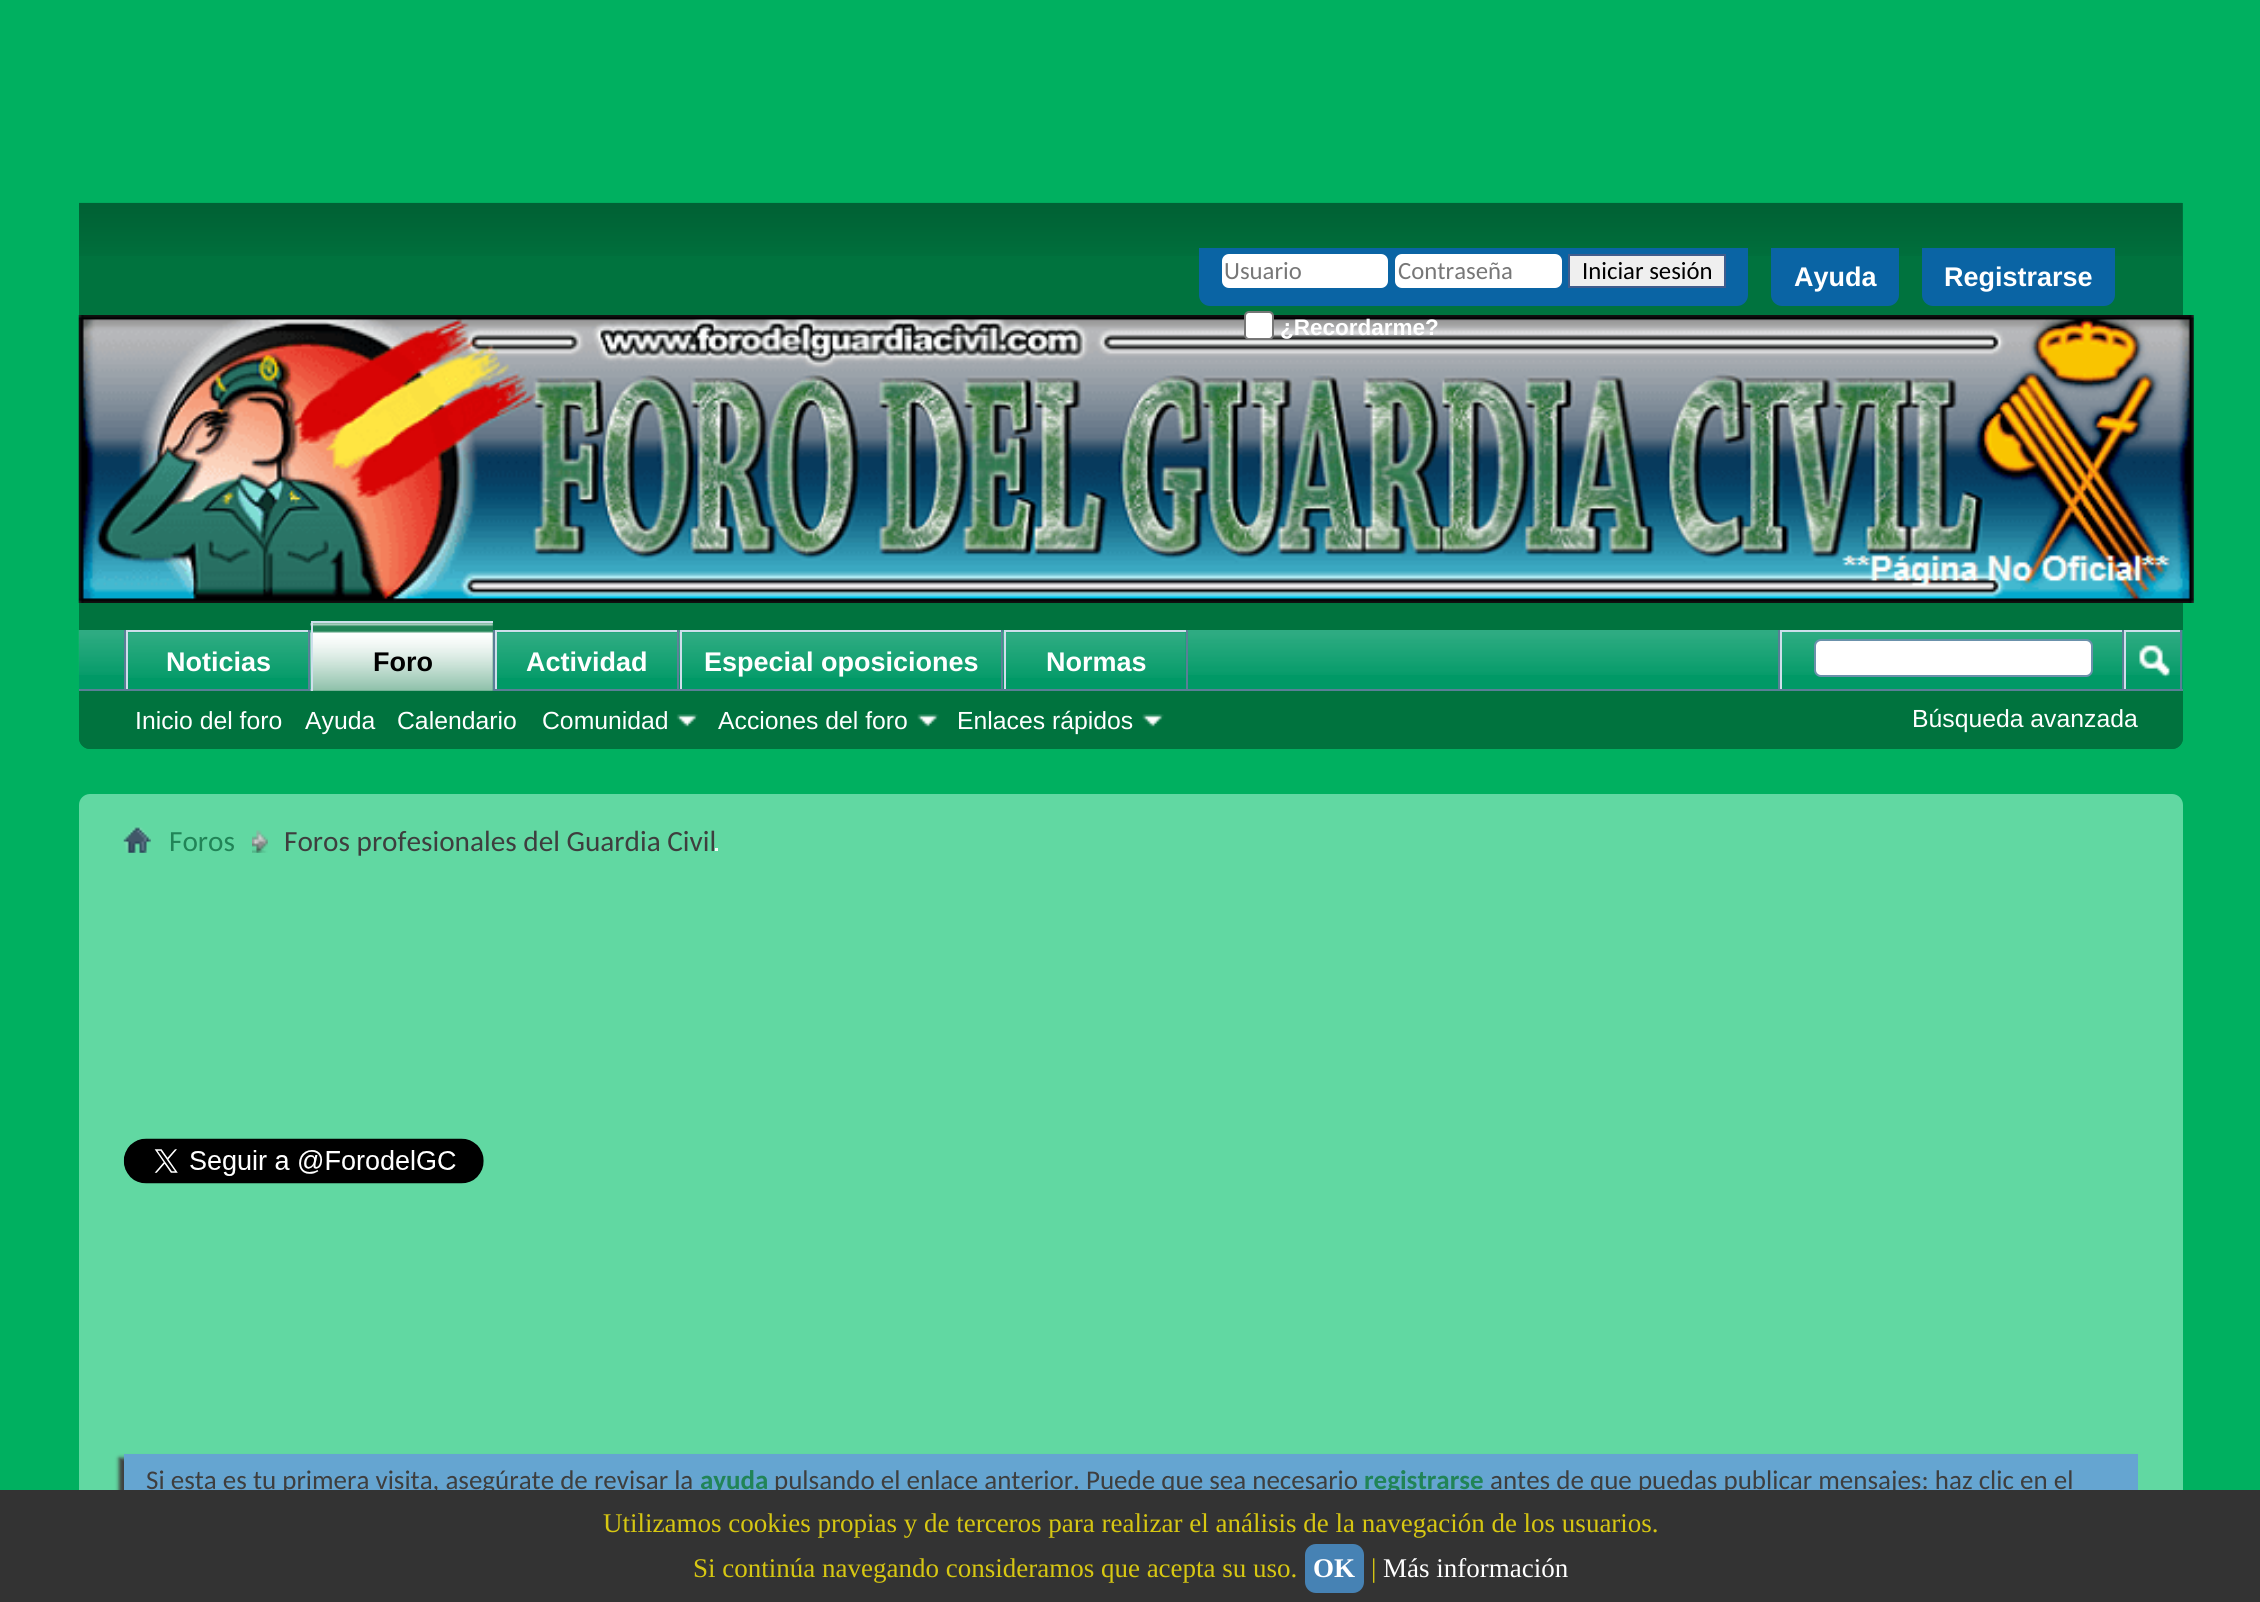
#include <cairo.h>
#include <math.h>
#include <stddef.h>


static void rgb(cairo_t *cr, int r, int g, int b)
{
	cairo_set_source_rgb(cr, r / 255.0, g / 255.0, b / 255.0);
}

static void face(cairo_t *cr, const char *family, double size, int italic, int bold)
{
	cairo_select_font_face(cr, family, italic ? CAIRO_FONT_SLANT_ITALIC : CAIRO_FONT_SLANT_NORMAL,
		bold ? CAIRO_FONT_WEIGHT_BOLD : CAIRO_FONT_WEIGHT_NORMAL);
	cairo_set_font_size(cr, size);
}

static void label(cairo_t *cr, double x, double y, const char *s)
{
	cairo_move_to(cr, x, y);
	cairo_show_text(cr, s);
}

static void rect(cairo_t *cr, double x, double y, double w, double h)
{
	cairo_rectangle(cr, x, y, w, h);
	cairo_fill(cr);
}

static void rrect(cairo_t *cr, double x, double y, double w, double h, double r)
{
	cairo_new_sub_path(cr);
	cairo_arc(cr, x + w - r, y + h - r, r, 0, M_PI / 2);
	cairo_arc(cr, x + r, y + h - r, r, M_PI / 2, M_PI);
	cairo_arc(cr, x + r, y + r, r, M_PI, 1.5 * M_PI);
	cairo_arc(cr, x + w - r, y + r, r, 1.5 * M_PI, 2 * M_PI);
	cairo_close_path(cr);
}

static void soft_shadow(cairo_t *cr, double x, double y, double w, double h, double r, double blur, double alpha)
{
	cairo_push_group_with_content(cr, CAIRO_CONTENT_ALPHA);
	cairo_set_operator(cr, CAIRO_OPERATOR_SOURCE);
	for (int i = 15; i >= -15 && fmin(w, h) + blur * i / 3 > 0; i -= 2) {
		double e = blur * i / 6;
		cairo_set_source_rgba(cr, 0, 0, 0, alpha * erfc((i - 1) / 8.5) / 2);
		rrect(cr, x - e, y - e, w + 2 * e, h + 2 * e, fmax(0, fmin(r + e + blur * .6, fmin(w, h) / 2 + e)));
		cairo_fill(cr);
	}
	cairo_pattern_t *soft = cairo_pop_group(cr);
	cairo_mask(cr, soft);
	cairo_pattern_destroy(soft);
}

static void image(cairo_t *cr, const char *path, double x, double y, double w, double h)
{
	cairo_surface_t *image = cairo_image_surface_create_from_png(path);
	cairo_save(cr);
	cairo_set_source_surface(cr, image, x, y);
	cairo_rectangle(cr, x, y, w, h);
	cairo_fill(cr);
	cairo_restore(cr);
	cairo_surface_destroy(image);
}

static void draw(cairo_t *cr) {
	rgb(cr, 0, 176, 96);
	cairo_paint(cr);
	rgb(cr, 0, 115, 62);
	cairo_new_path(cr);
	cairo_move_to(cr, 79, 203);
	cairo_line_to(cr, 2183, 203);
	cairo_line_to(cr, 2183, 738);
	cairo_curve_to(cr, 2183, 744, 2178, 749, 2172, 749);
	cairo_line_to(cr, 90, 749);
	cairo_curve_to(cr, 84, 749, 79, 744, 79, 738);
	cairo_close_path(cr);
	cairo_fill(cr);
	image(cr, "image0.png", 79, 202, 2104, 54);
	rgb(cr, 10, 100, 164);
	cairo_new_path(cr);
	cairo_move_to(cr, 1199, 248);
	cairo_line_to(cr, 1748, 248);
	cairo_line_to(cr, 1748, 295);
	cairo_curve_to(cr, 1748, 301, 1743, 306, 1737, 306);
	cairo_line_to(cr, 1210, 306);
	cairo_curve_to(cr, 1204, 306, 1199, 301, 1199, 295);
	cairo_close_path(cr);
	cairo_fill(cr);
	rgb(cr, 255, 255, 255);
	rrect(cr, 1222, 254, 166, 34, 7);
	cairo_fill(cr);
	face(cr, "Carlito", 24.75, 0, 0);
	rgb(cr, 119, 119, 119);
	label(cr, 1224, 279, "Usuario");
	rgb(cr, 255, 255, 255);
	rrect(cr, 1395, 254, 167, 34, 7);
	cairo_fill(cr);
	rgb(cr, 119, 119, 119);
	label(cr, 1398, 279, "Contraseña");
	rgb(cr, 239, 239, 239);
	cairo_rectangle(cr, 1569, 255, 156, 32);
	cairo_fill_preserve(cr);
	rgb(cr, 65, 93, 141);
	cairo_stroke(cr);
	rgb(cr, 0, 0, 0);
	label(cr, 1582, 279, "Iniciar sesión");
	image(cr, "image1.png", 78, 315, 2116, 288);
	rgb(cr, 255, 255, 255);
	rrect(cr, 1245, 312, 28, 27, 4);
	cairo_fill_preserve(cr);
	rgb(cr, 118, 118, 118);
	cairo_stroke(cr);
	face(cr, "Liberation Sans", 22.5, 0, 1);
	rgb(cr, 255, 255, 255);
	label(cr, 1280, 335, "¿Recordarme?");
	rgb(cr, 10, 100, 164);
	cairo_new_path(cr);
	cairo_move_to(cr, 1771, 248);
	cairo_line_to(cr, 1899, 248);
	cairo_line_to(cr, 1899, 295);
	cairo_curve_to(cr, 1899, 301, 1894, 306, 1888, 306);
	cairo_line_to(cr, 1782, 306);
	cairo_curve_to(cr, 1776, 306, 1771, 301, 1771, 295);
	cairo_close_path(cr);
	cairo_fill(cr);
	face(cr, "Liberation Sans", 27, 0, 1);
	rgb(cr, 255, 255, 255);
	label(cr, 1794, 286, "Ayuda");
	rgb(cr, 10, 100, 164);
	cairo_new_path(cr);
	cairo_move_to(cr, 1922, 248);
	cairo_line_to(cr, 2115, 248);
	cairo_line_to(cr, 2115, 295);
	cairo_curve_to(cr, 2115, 301, 2110, 306, 2104, 306);
	cairo_line_to(cr, 1933, 306);
	cairo_curve_to(cr, 1927, 306, 1922, 301, 1922, 295);
	cairo_close_path(cr);
	cairo_fill(cr);
	rgb(cr, 255, 255, 255);
	label(cr, 1944, 286, "Registrarse");
	rgb(cr, 0, 115, 62);
	cairo_new_path(cr);
	cairo_move_to(cr, 79, 630);
	cairo_line_to(cr, 2183, 630);
	cairo_line_to(cr, 2183, 738);
	cairo_curve_to(cr, 2183, 744, 2178, 749, 2172, 749);
	cairo_line_to(cr, 90, 749);
	cairo_curve_to(cr, 84, 749, 79, 744, 79, 738);
	cairo_close_path(cr);
	cairo_fill(cr);
	rgb(cr, 0, 153, 102);
	rect(cr, 79, 630, 2104, 59);
	image(cr, "image2.png", 78, 630, 2105, 45);
	rgb(cr, 90, 127, 151);
	rect(cr, 308, 630, 2, 61);
	rect(cr, 124, 630, 2, 61);
	rgb(cr, 0, 153, 102);
	rect(cr, 128, 632, 180, 43);
	image(cr, "image3.png", 128, 632, 181, 46);
	rgb(cr, 206, 223, 235);
	rect(cr, 126, 630, 182, 2);
	rect(cr, 126, 630, 2, 61);
	rgb(cr, 255, 255, 255);
	label(cr, 166, 671, "Noticias");
	rgb(cr, 90, 127, 151);
	rect(cr, 493, 630, 2, 59);
	rect(cr, 677, 630, 2, 61);
	rgb(cr, 206, 223, 235);
	rect(cr, 495, 630, 182, 2);
	rect(cr, 495, 630, 2, 61);
	rgb(cr, 90, 127, 151);
	rect(cr, 1001, 630, 2, 61);
	rgb(cr, 0, 153, 102);
	rect(cr, 682, 632, 319, 43);
	image(cr, "image5.png", 679, 632, 323, 46);
	rgb(cr, 206, 223, 235);
	rect(cr, 680, 630, 321, 2);
	rect(cr, 680, 630, 2, 61);
	rgb(cr, 90, 127, 151);
	rect(cr, 1186, 630, 2, 61);
	rgb(cr, 0, 153, 102);
	rect(cr, 1006, 632, 180, 43);
	image(cr, "image6.png", 1003, 632, 183, 46);
	rgb(cr, 206, 223, 235);
	rect(cr, 1004, 630, 182, 2);
	rect(cr, 1004, 630, 2, 61);
	rgb(cr, 90, 127, 151);
	rect(cr, 79, 689, 2104, 2);
	rgb(cr, 33, 132, 87);
	rect(cr, 313, 623, 180, 68);
	image(cr, "image4.png", 310, 623, 183, 68);
	rgb(cr, 206, 223, 235);
	rect(cr, 311, 621, 182, 2);
	rect(cr, 311, 621, 2, 70);
	rgb(cr, 0, 0, 0);
	label(cr, 373, 671, "Foro");
	rgb(cr, 0, 153, 102);
	rect(cr, 497, 632, 180, 43);
	image(cr, "image3.png", 497, 632, 181, 46);
	rgb(cr, 255, 255, 255);
	label(cr, 526, 671, "Actividad");
	label(cr, 704, 671, "Especial oposiciones");
	label(cr, 1046, 671, "Normas");
	face(cr, "Liberation Sans", 24.75, 0, 0);
	label(cr, 135, 729, "Inicio del foro");
	label(cr, 305, 729, "Ayuda");
	label(cr, 397, 729, "Calendario");
	label(cr, 542, 729, "Comunidad");
	image(cr, "image7.png", 676, 714, 22, 13);
	label(cr, 718, 729, "Acciones del foro");
	image(cr, "image8.png", 917, 714, 22, 13);
	label(cr, 957, 729, "Enlaces rápidos");
	image(cr, "image8.png", 1142, 714, 22, 13);
	rgb(cr, 90, 127, 151);
	rect(cr, 1778, 630, 2, 59);
	rgb(cr, 206, 223, 235);
	rect(cr, 1780, 630, 342, 2);
	rect(cr, 1780, 630, 2, 59);
	rgb(cr, 255, 255, 255);
	rrect(cr, 1815, 640, 277, 36, 6);
	cairo_fill_preserve(cr);
	rgb(cr, 107, 145, 171);
	cairo_stroke(cr);
	rgb(cr, 90, 127, 151);
	rect(cr, 2180, 630, 2, 59);
	rect(cr, 2122, 630, 2, 59);
	rgb(cr, 206, 223, 235);
	rect(cr, 2124, 630, 56, 2);
	rect(cr, 2124, 630, 2, 59);
	image(cr, "image9.png", 2139, 645, 31, 33);
	rgb(cr, 255, 255, 255);
	label(cr, 1912, 727, "Búsqueda avanzada");
	rgb(cr, 97, 216, 162);
	rrect(cr, 79, 794, 2104, 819, 11);
	cairo_fill(cr);
	rgb(cr, 62, 62, 62);
	soft_shadow(cr, 119, 1458, 2014, 88, 0, 2, 1);
	rgb(cr, 101, 165, 209);
	rect(cr, 124, 1454, 2014, 36);
	face(cr, "Carlito", 27, 0, 0);
	rgb(cr, 62, 62, 62);
	label(cr, 146, 1489, "Si esta es tu primera visita, asegúrate de revisar la");
	face(cr, "Carlito", 27, 0, 1);
	rgb(cr, 33, 132, 87);
	label(cr, 700, 1489, "ayuda");
	face(cr, "Carlito", 27, 0, 0);
	rgb(cr, 62, 62, 62);
	label(cr, 774, 1489, "pulsando el enlace anterior. Puede que sea necesario");
	face(cr, "Carlito", 27, 0, 1);
	rgb(cr, 33, 132, 87);
	label(cr, 1364, 1489, "registrarse");
	face(cr, "Carlito", 27, 0, 0);
	rgb(cr, 62, 62, 62);
	label(cr, 1490, 1489, "antes de que puedas publicar mensajes: haz clic en el");
	rgb(cr, 51, 51, 51);
	rect(cr, 0, 1490, 2260, 112);
	face(cr, "Liberation Serif", 27, 0, 0);
	rgb(cr, 215, 199, 18);
	label(cr, 603, 1532, "Utilizamos cookies propias y de terceros para realizar el análisis de la navegación de los usuarios.");
	label(cr, 693, 1577, "Si continúa navegando consideramos que acepta su uso.");
	rgb(cr, 70, 130, 180);
	rrect(cr, 1305, 1544, 59, 49, 11);
	cairo_fill(cr);
	face(cr, "Liberation Serif", 27, 0, 1);
	rgb(cr, 255, 255, 255);
	label(cr, 1313, 1577, "OK");
	face(cr, "Liberation Serif", 27, 0, 0);
	rgb(cr, 215, 199, 18);
	label(cr, 1371, 1577, "|");
	rgb(cr, 255, 255, 255);
	label(cr, 1383, 1577, "Más información");
	image(cr, "image10.png", 123, 826, 28, 27);
	image(cr, "image11.png", 252, 830, 16, 23);
	face(cr, "Carlito", 29.25, 0, 0);
	rgb(cr, 33, 132, 87);
	label(cr, 169, 851, "Foros");
	rgb(cr, 62, 62, 62);
	label(cr, 284, 851, "Foros profesionales del Guardia Civil");
	rgb(cr, 254, 253, 253);
	rect(cr, 715, 848, 3, 3);
	image(cr, "image12.png", 123, 1138, 361, 46);
}

int main(void) {
	cairo_surface_t *surface = cairo_image_surface_create(CAIRO_FORMAT_RGB24, 2260, 1602);
	cairo_t *cr = cairo_create(surface);
	cairo_font_options_t *options = cairo_font_options_create();
	cairo_font_options_set_hint_metrics(options, CAIRO_HINT_METRICS_OFF);
	cairo_font_options_set_hint_style(options, CAIRO_HINT_STYLE_NONE);
	cairo_set_font_options(cr, options);
	cairo_set_miter_limit(cr, 4);
	draw(cr);
	cairo_surface_write_to_png(surface, "render.png");
	cairo_font_options_destroy(options);
	cairo_destroy(cr);
	cairo_surface_destroy(surface);
	return 0;
}
